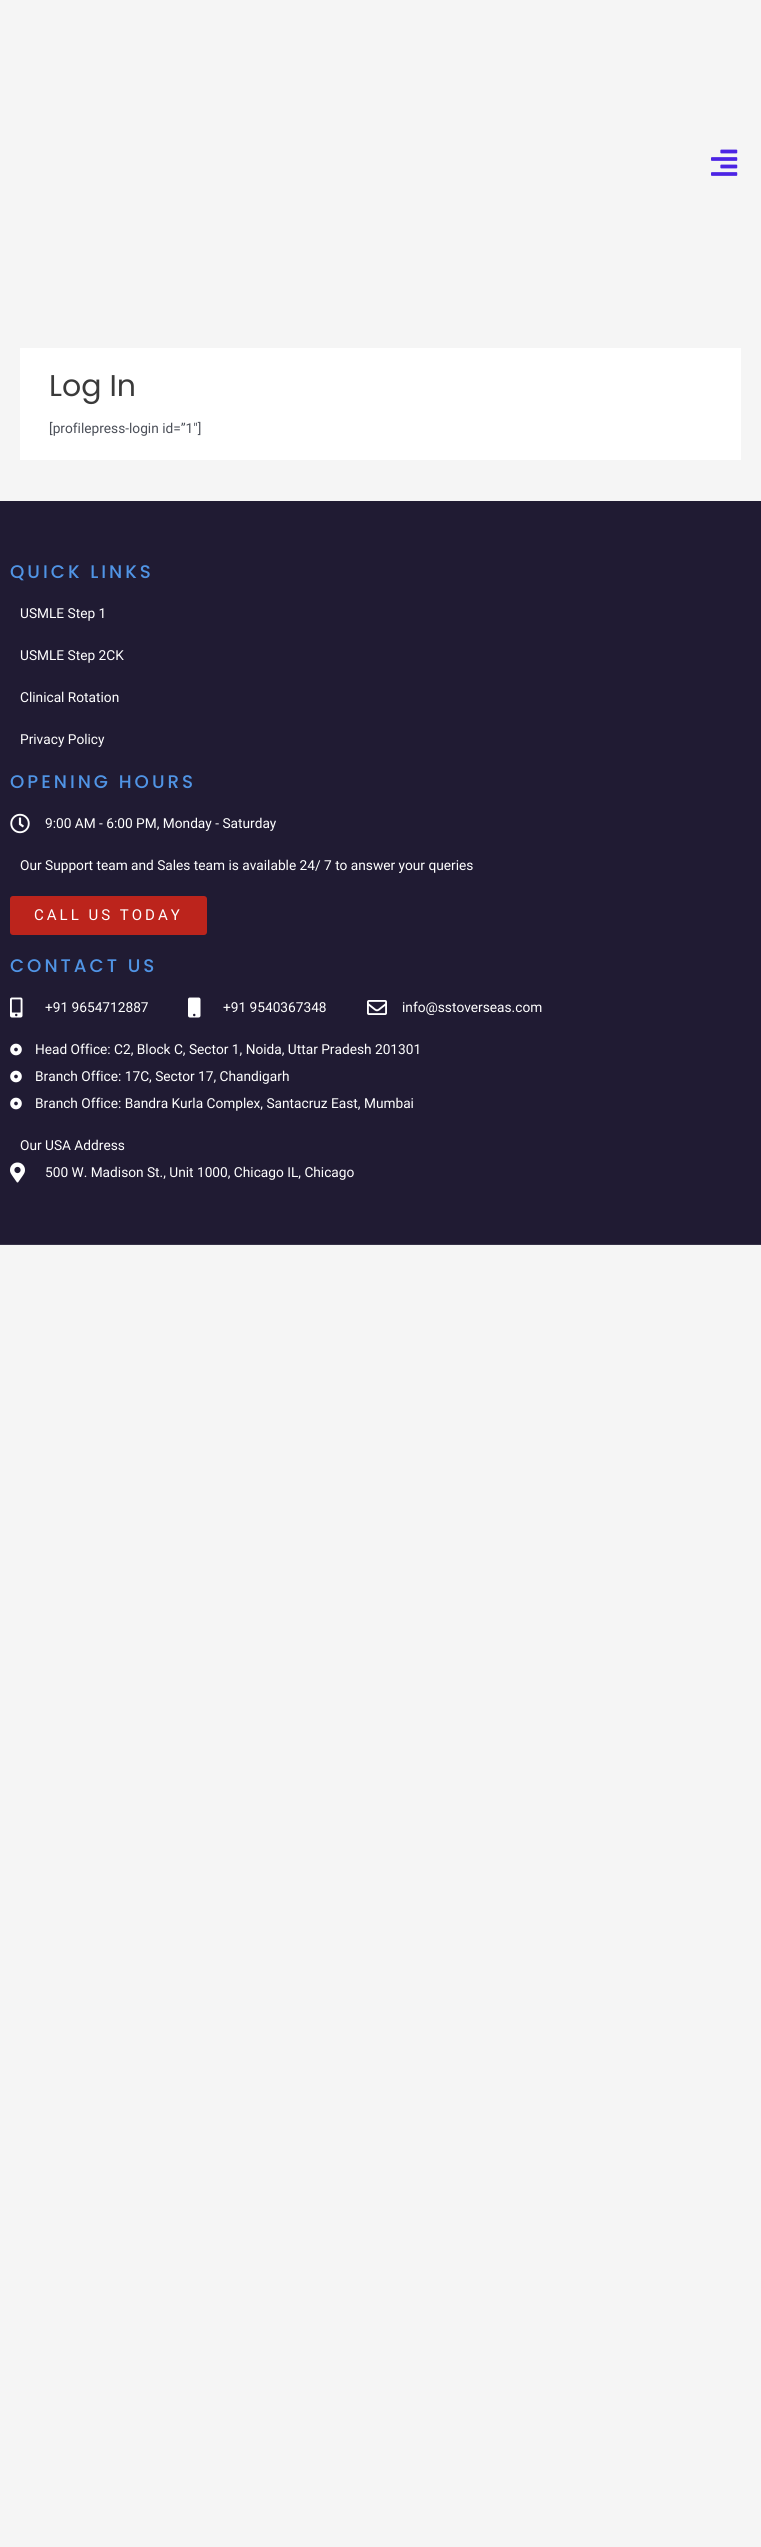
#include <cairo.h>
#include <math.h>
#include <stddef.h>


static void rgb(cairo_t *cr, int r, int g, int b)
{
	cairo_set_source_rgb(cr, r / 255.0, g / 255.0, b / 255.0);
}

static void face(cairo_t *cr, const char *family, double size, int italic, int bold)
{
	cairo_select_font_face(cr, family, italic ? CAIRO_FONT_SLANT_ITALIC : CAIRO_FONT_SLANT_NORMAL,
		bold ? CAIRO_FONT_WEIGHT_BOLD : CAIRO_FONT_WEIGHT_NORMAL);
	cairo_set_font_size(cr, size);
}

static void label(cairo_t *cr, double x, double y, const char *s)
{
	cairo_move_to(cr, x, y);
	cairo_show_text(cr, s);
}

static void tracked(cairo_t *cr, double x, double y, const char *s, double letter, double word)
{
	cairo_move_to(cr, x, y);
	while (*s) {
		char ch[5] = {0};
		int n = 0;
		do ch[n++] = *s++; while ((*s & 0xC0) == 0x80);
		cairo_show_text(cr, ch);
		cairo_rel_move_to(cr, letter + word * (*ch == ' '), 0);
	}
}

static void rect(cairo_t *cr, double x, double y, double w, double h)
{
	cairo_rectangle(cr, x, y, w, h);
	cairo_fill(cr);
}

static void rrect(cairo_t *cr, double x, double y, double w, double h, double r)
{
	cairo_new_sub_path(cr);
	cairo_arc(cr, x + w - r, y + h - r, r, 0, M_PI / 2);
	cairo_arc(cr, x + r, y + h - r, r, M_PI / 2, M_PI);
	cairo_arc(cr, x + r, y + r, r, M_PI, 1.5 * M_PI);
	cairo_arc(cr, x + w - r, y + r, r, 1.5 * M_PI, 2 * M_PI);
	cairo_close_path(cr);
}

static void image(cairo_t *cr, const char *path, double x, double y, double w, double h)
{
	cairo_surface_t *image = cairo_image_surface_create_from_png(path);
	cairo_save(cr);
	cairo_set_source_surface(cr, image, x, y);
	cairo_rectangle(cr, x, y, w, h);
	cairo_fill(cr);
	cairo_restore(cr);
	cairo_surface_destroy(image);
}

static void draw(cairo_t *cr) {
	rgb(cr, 245, 245, 245);
	cairo_paint(cr);
	image(cr, "image0.png", 711, 149, 27, 27);
	rgb(cr, 255, 255, 255);
	rect(cr, 20, 348, 721, 112);
	face(cr, "Poppins", 30, 0, 0);
	rgb(cr, 58, 58, 58);
	label(cr, 49, 396, "Log In");
	face(cr, "Roboto", 13.7, 0, 0);
	rgb(cr, 75, 79, 88);
	label(cr, 49, 433, "[profilepress-login id=”1″]");
	rgb(cr, 32, 27, 51);
	rect(cr, 0, 501, 761, 743);
	rgb(cr, 54, 50, 71);
	rect(cr, 0, 1244, 761, 1);
	face(cr, "Poppins Medium", 18.25, 0, 0);
	rgb(cr, 80, 148, 229);
	tracked(cr, 10, 578, "QUICK LINKS", 3, 0);
	face(cr, "Roboto", 13.7, 0, 0);
	rgb(cr, 255, 255, 255);
	label(cr, 20, 618, "USMLE Step 1");
	label(cr, 20, 660, "USMLE Step 2CK");
	label(cr, 20, 702, "Clinical Rotation");
	label(cr, 20, 744, "Privacy Policy");
	face(cr, "Poppins Medium", 18.25, 0, 0);
	rgb(cr, 80, 148, 229);
	tracked(cr, 10, 788, "OPENING HOURS", 3, 0);
	image(cr, "image1.png", 10, 813, 20, 21);
	face(cr, "Roboto", 13.7, 0, 0);
	rgb(cr, 255, 255, 255);
	label(cr, 45, 828, "9:00 AM - 6:00 PM, Monday - Saturday");
	label(cr, 20, 870, "Our Support team and Sales team is available 24/ 7 to answer your queries");
	rgb(cr, 188, 36, 28);
	rrect(cr, 10, 896, 197, 39, 3);
	cairo_fill(cr);
	face(cr, "Roboto", 15, 0, 0);
	rgb(cr, 255, 255, 255);
	tracked(cr, 34, 920, "CALL US TODAY", 3, 0);
	face(cr, "Poppins Medium", 18.25, 0, 0);
	rgb(cr, 80, 148, 229);
	tracked(cr, 10, 972, "CONTACT US", 3, 0);
	image(cr, "image2.png", 10, 997, 13, 21);
	face(cr, "Roboto", 13.7, 0, 0);
	rgb(cr, 255, 255, 255);
	label(cr, 45, 1012, "+91 9654712887");
	image(cr, "image3.png", 188, 997, 13, 21);
	label(cr, 223, 1012, "+91 9540367348");
	image(cr, "image4.png", 367, 1000, 20, 15);
	label(cr, 402, 1012, "info@sstoverseas.com");
	image(cr, "image5.png", 10, 1043, 12, 13);
	label(cr, 35, 1054, "Head Office: C2, Block C, Sector 1, Noida, Uttar Pradesh 201301");
	image(cr, "image5.png", 10, 1070, 12, 13);
	label(cr, 35, 1081, "Branch Office: 17C, Sector 17, Chandigarh");
	image(cr, "image5.png", 10, 1097, 12, 13);
	label(cr, 35, 1108, "Branch Office: Bandra Kurla Complex, Santacruz East, Mumbai");
	label(cr, 20, 1150, "Our USA Address");
	image(cr, "image6.png", 10, 1162, 15, 21);
	label(cr, 45, 1177, "500 W. Madison St., Unit 1000, Chicago IL, Chicago");
}

int main(void) {
	cairo_surface_t *surface = cairo_image_surface_create(CAIRO_FORMAT_RGB24, 761, 2547);
	cairo_t *cr = cairo_create(surface);
	cairo_font_options_t *options = cairo_font_options_create();
	cairo_font_options_set_hint_metrics(options, CAIRO_HINT_METRICS_OFF);
	cairo_font_options_set_hint_style(options, CAIRO_HINT_STYLE_NONE);
	cairo_set_font_options(cr, options);
	cairo_set_miter_limit(cr, 4);
	draw(cr);
	cairo_surface_write_to_png(surface, "render.png");
	cairo_font_options_destroy(options);
	cairo_destroy(cr);
	cairo_surface_destroy(surface);
	return 0;
}
